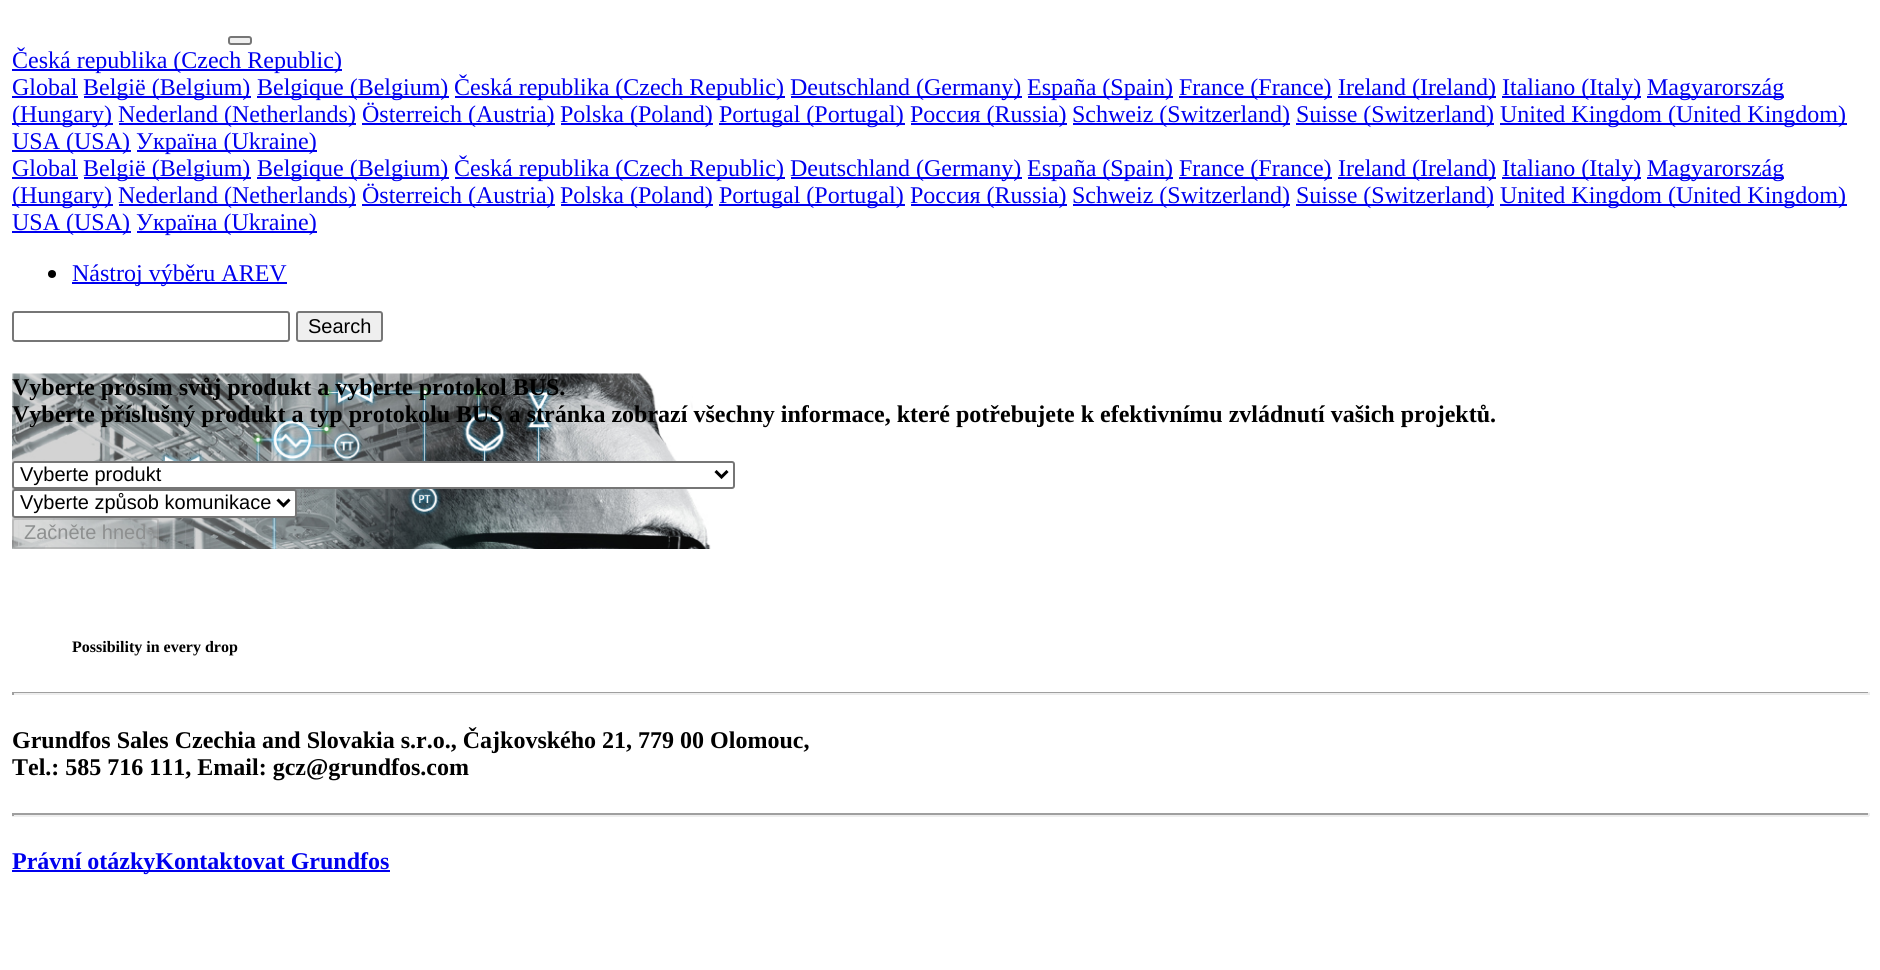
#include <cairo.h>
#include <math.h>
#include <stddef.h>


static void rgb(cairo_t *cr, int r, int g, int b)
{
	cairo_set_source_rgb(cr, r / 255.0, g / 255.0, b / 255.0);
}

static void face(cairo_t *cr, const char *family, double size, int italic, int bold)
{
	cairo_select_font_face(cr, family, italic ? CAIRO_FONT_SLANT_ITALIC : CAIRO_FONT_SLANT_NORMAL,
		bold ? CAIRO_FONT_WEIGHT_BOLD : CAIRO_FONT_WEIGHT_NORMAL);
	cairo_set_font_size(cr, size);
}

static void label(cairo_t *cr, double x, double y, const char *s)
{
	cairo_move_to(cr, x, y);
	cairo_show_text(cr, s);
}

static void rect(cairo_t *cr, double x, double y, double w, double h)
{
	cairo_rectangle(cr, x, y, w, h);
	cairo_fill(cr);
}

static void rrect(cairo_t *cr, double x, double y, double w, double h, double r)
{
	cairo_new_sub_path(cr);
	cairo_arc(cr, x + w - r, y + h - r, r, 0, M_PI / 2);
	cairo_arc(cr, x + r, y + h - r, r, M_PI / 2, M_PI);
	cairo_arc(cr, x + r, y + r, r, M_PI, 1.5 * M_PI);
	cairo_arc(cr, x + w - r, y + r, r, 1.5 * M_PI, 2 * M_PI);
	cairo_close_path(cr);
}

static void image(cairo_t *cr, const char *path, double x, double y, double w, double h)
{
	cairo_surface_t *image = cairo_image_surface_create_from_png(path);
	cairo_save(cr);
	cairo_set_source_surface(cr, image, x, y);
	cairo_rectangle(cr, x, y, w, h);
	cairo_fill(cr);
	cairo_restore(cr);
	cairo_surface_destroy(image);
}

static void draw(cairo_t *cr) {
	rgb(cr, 255, 255, 255);
	cairo_paint(cr);
	rgb(cr, 239, 239, 239);
	rrect(cr, 229, 37, 22, 7, 2);
	cairo_fill_preserve(cr);
	rgb(cr, 118, 118, 118);
	cairo_stroke(cr);
	rgb(cr, 0, 0, 238);
	rect(cr, 12, 69, 330, 2);
	face(cr, "Liberation Serif", 24, 0, 0);
	label(cr, 12, 68, "Česká republika (Czech Republic)");
	label(cr, 12, 95, "Global");
	rect(cr, 12, 96, 66, 2);
	rect(cr, 84, 96, 167, 2);
	label(cr, 83, 95, "België (Belgium)");
	rect(cr, 257, 96, 192, 2);
	label(cr, 257, 95, "Belgique (Belgium)");
	rect(cr, 455, 96, 330, 2);
	label(cr, 454, 95, "Česká republika (Czech Republic)");
	rect(cr, 791, 96, 231, 2);
	label(cr, 790, 95, "Deutschland (Germany)");
	rect(cr, 1028, 96, 145, 2);
	label(cr, 1027, 95, "España (Spain)");
	rect(cr, 1179, 96, 153, 2);
	label(cr, 1179, 95, "France (France)");
	rect(cr, 1338, 96, 158, 2);
	label(cr, 1338, 95, "Ireland (Ireland)");
	rect(cr, 1502, 96, 139, 2);
	label(cr, 1502, 95, "Italiano (Italy)");
	rect(cr, 1647, 96, 137, 2);
	label(cr, 1647, 95, "Magyarország");
	rect(cr, 12, 123, 101, 2);
	label(cr, 12, 122, "(Hungary)");
	rect(cr, 119, 123, 237, 2);
	label(cr, 118, 122, "Nederland (Netherlands)");
	rect(cr, 362, 123, 193, 2);
	label(cr, 362, 122, "Österreich (Austria)");
	rect(cr, 561, 123, 152, 2);
	label(cr, 560, 122, "Polska (Poland)");
	rect(cr, 719, 123, 186, 2);
	label(cr, 719, 122, "Portugal (Portugal)");
	rect(cr, 911, 123, 156, 2);
	label(cr, 910, 122, "Россия (Russia)");
	rect(cr, 1073, 123, 217, 2);
	label(cr, 1072, 122, "Schweiz (Switzerland)");
	rect(cr, 1296, 123, 198, 2);
	label(cr, 1296, 122, "Suisse (Switzerland)");
	rect(cr, 1500, 123, 347, 2);
	label(cr, 1500, 122, "United Kingdom (United Kingdom)");
	rect(cr, 12, 150, 119, 2);
	label(cr, 12, 149, "USA (USA)");
	rect(cr, 137, 150, 180, 2);
	label(cr, 136, 149, "Україна (Ukraine)");
	label(cr, 12, 176, "Global");
	rect(cr, 12, 177, 66, 2);
	rect(cr, 84, 177, 167, 2);
	label(cr, 83, 176, "België (Belgium)");
	rect(cr, 257, 177, 192, 2);
	label(cr, 257, 176, "Belgique (Belgium)");
	rect(cr, 455, 177, 330, 2);
	label(cr, 454, 176, "Česká republika (Czech Republic)");
	rect(cr, 791, 177, 231, 2);
	label(cr, 790, 176, "Deutschland (Germany)");
	rect(cr, 1028, 177, 145, 2);
	label(cr, 1027, 176, "España (Spain)");
	rect(cr, 1179, 177, 153, 2);
	label(cr, 1179, 176, "France (France)");
	rect(cr, 1338, 177, 158, 2);
	label(cr, 1338, 176, "Ireland (Ireland)");
	rect(cr, 1502, 177, 139, 2);
	label(cr, 1502, 176, "Italiano (Italy)");
	rect(cr, 1647, 177, 137, 2);
	label(cr, 1647, 176, "Magyarország");
	rect(cr, 12, 204, 101, 2);
	label(cr, 12, 203, "(Hungary)");
	rect(cr, 119, 204, 237, 2);
	label(cr, 118, 203, "Nederland (Netherlands)");
	rect(cr, 362, 204, 193, 2);
	label(cr, 362, 203, "Österreich (Austria)");
	rect(cr, 561, 204, 152, 2);
	label(cr, 560, 203, "Polska (Poland)");
	rect(cr, 719, 204, 186, 2);
	label(cr, 719, 203, "Portugal (Portugal)");
	rect(cr, 911, 204, 156, 2);
	label(cr, 910, 203, "Россия (Russia)");
	rect(cr, 1073, 204, 217, 2);
	label(cr, 1072, 203, "Schweiz (Switzerland)");
	rect(cr, 1296, 204, 198, 2);
	label(cr, 1296, 203, "Suisse (Switzerland)");
	rect(cr, 1500, 204, 347, 2);
	label(cr, 1500, 203, "United Kingdom (United Kingdom)");
	rect(cr, 12, 231, 119, 2);
	label(cr, 12, 230, "USA (USA)");
	rect(cr, 137, 231, 180, 2);
	label(cr, 136, 230, "Україна (Ukraine)");
	rgb(cr, 0, 0, 0);
	cairo_new_path(cr);
	cairo_arc(cr, 52, 274, 4, 0, 2 * M_PI);
	cairo_fill(cr);
	rgb(cr, 0, 0, 238);
	rect(cr, 72, 282, 150, 2);
	label(cr, 72, 281, "Nástroj výběru AREV");
	cairo_new_path(cr);
	cairo_move_to(cr, 221.5, 283);
	cairo_line_to(cr, 286.5, 283);
	cairo_set_line_width(cr, 1.5);
	cairo_set_dash(cr, (double[]){1.5, 1.5}, 2, 0);
	cairo_stroke(cr);
	rect(cr, 222, 282, 65, 2);
	rrect(cr, 13, 312, 276, 29, 2);
	rgb(cr, 118, 118, 118);
	cairo_set_line_width(cr, 2);
	cairo_set_dash(cr, NULL, 0, 0);
	cairo_stroke(cr);
	rgb(cr, 239, 239, 239);
	rrect(cr, 297, 312, 85, 29, 2);
	cairo_fill_preserve(cr);
	rgb(cr, 118, 118, 118);
	cairo_stroke(cr);
	face(cr, "Liberation Sans", 20, 0, 0);
	rgb(cr, 0, 0, 0);
	label(cr, 308, 333, "Search");
	image(cr, "image0.png", 12, 373, 699, 176);
	face(cr, "Liberation Serif", 24, 0, 1);
	label(cr, 12, 395, "Vyberte prosím svůj produkt a vyberte protokol BUS.");
	label(cr, 12, 422, "Vyberte příslušný produkt a typ protokolu BUS a stránka zobrazí všechny informace, které potřebujete k efektivnímu zvládnutí vašich projektů.");
	rgb(cr, 255, 255, 255);
	rrect(cr, 13, 462, 721, 26, 2);
	cairo_fill_preserve(cr);
	rgb(cr, 118, 118, 118);
	cairo_stroke(cr);
	cairo_new_path(cr);
	cairo_move_to(cr, 715.5, 471);
	cairo_line_to(cr, 721.5, 477);
	cairo_line_to(cr, 727.5, 471);
	rgb(cr, 0, 0, 0);
	cairo_set_line_width(cr, 3);
	cairo_stroke(cr);
	face(cr, "Liberation Sans", 20, 0, 0);
	label(cr, 20, 481, "Vyberte produkt");
	rgb(cr, 255, 255, 255);
	rrect(cr, 13, 490, 283, 27, 2);
	cairo_fill_preserve(cr);
	rgb(cr, 118, 118, 118);
	cairo_set_line_width(cr, 2);
	cairo_stroke(cr);
	cairo_new_path(cr);
	cairo_move_to(cr, 277.5, 499.5);
	cairo_line_to(cr, 283.5, 505.5);
	cairo_line_to(cr, 289.5, 499.5);
	rgb(cr, 0, 0, 0);
	cairo_set_line_width(cr, 3);
	cairo_stroke(cr);
	label(cr, 20, 509, "Vyberte způsob komunikace");
	cairo_set_source_rgba(cr, 0.937, 0.937, 0.937, 0.3);
	rrect(cr, 12, 518, 147, 31, 3);
	cairo_fill(cr);
	rrect(cr, 13, 519, 145, 29, 2);
	cairo_set_source_rgba(cr, 0.463, 0.463, 0.463, 0.3);
	cairo_set_line_width(cr, 2);
	cairo_stroke(cr);
	rgb(cr, 142, 144, 144);
	label(cr, 24, 539, "Začněte hned");
	face(cr, "Liberation Serif", 16, 0, 1);
	rgb(cr, 0, 0, 0);
	label(cr, 72, 652, "Possibility in every drop");
	rgb(cr, 159, 159, 159);
	rect(cr, 12, 692, 1857, 1);
	rgb(cr, 238, 238, 238);
	rect(cr, 1868, 692, 2, 3);
	rect(cr, 12, 693, 1857, 2);
	rgb(cr, 159, 159, 159);
	rect(cr, 12, 692, 2, 3);
	face(cr, "Liberation Serif", 24, 0, 1);
	rgb(cr, 0, 0, 0);
	label(cr, 12, 748, "Grundfos Sales Czechia and Slovakia s.r.o., Čajkovského 21, 779 00 Olomouc,");
	label(cr, 12, 775, "Tel.: 585 716 111, Email: gcz@grundfos.com");
	rgb(cr, 159, 159, 159);
	rect(cr, 12, 813, 1857, 2);
	rgb(cr, 238, 238, 238);
	rect(cr, 1868, 813, 2, 3);
	rect(cr, 12, 815, 1857, 2);
	rgb(cr, 159, 159, 159);
	rect(cr, 12, 813, 2, 3);
	rgb(cr, 0, 0, 238);
	rect(cr, 12, 870, 378, 2);
	label(cr, 12, 869, "Právní otázkyKontaktovat Grundfos");
}

int main(void) {
	cairo_surface_t *surface = cairo_image_surface_create(CAIRO_FORMAT_RGB24, 1880, 970);
	cairo_t *cr = cairo_create(surface);
	cairo_font_options_t *options = cairo_font_options_create();
	cairo_font_options_set_hint_metrics(options, CAIRO_HINT_METRICS_OFF);
	cairo_font_options_set_hint_style(options, CAIRO_HINT_STYLE_NONE);
	cairo_set_font_options(cr, options);
	cairo_set_miter_limit(cr, 4);
	draw(cr);
	cairo_surface_write_to_png(surface, "render.png");
	cairo_font_options_destroy(options);
	cairo_destroy(cr);
	cairo_surface_destroy(surface);
	return 0;
}
